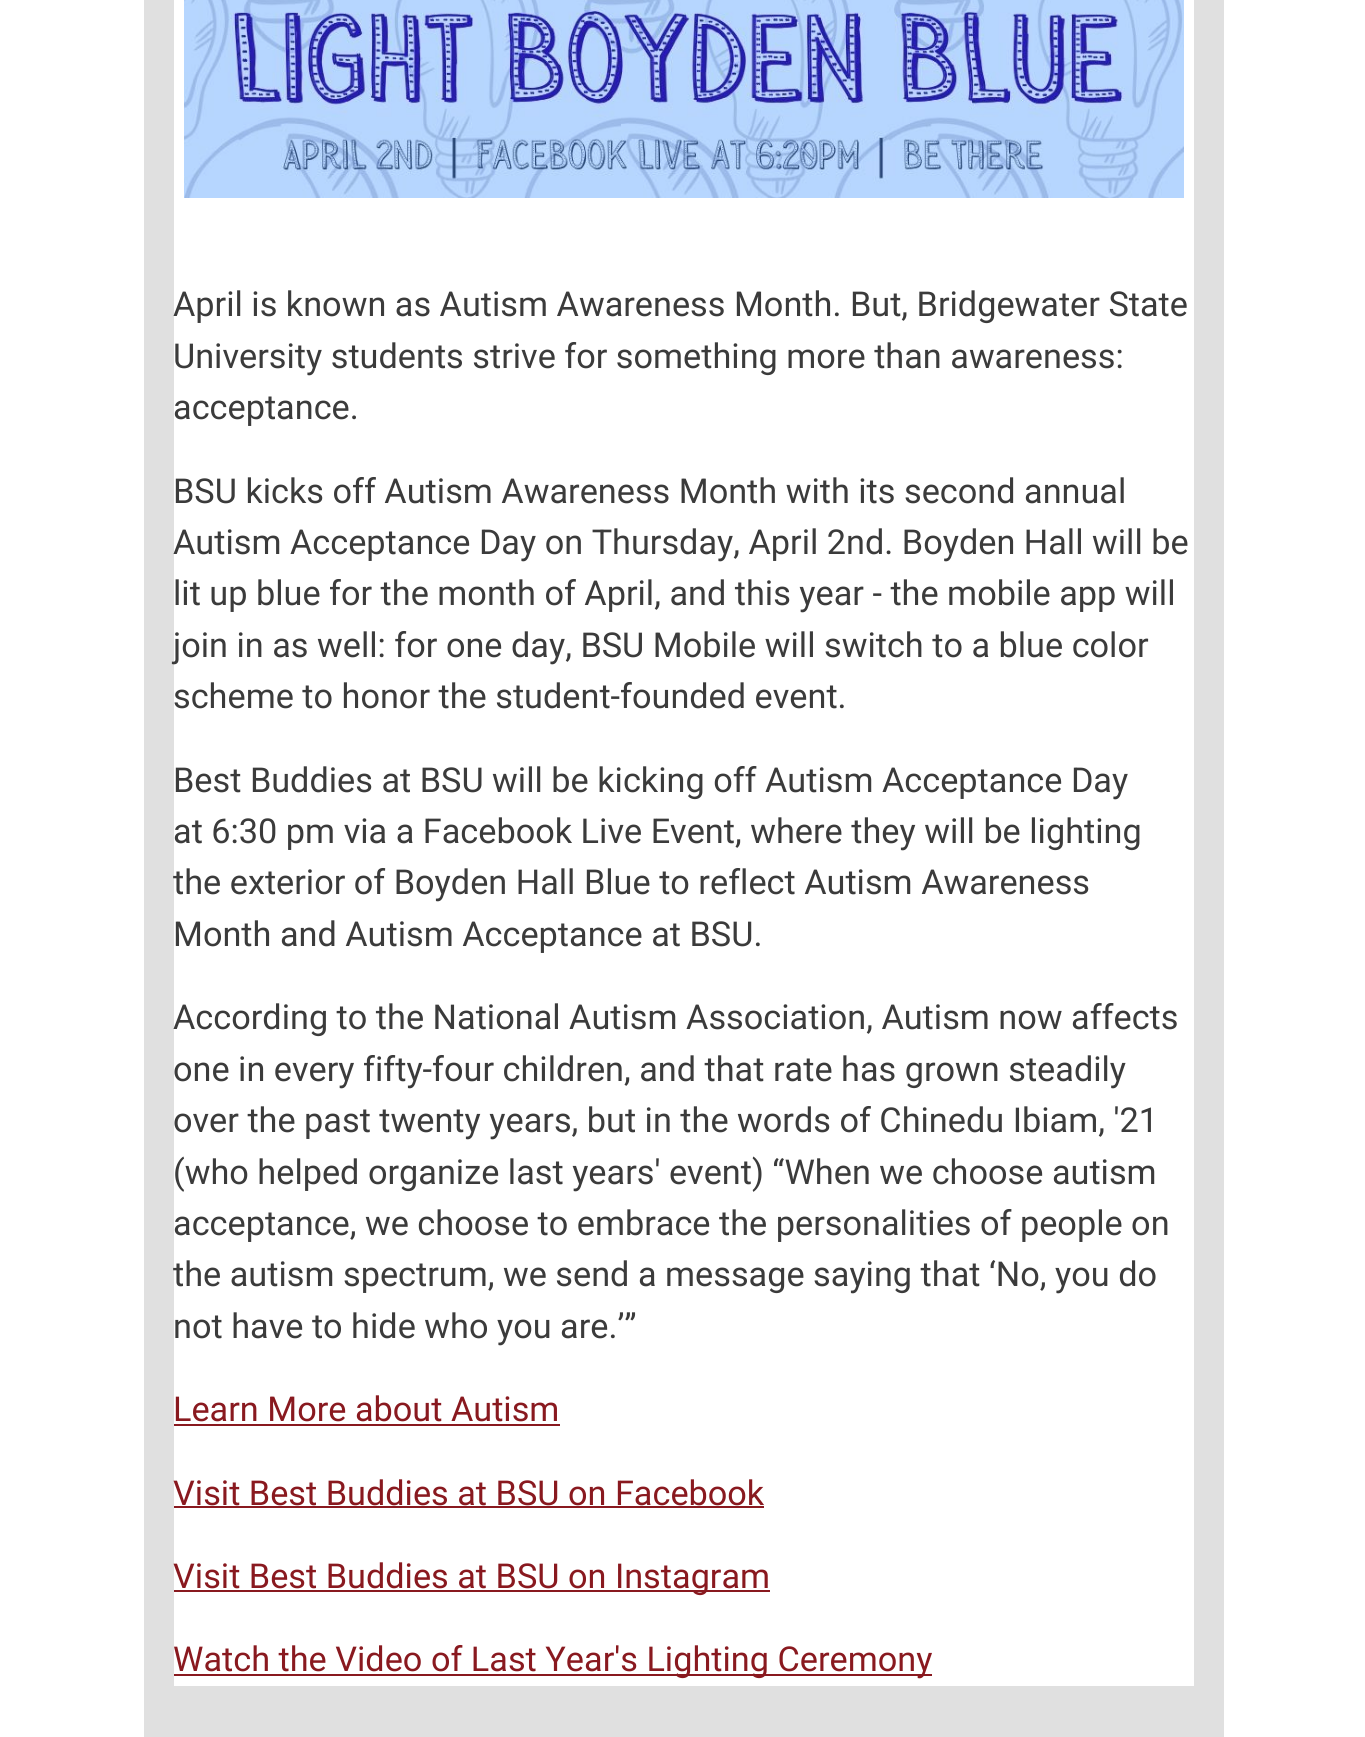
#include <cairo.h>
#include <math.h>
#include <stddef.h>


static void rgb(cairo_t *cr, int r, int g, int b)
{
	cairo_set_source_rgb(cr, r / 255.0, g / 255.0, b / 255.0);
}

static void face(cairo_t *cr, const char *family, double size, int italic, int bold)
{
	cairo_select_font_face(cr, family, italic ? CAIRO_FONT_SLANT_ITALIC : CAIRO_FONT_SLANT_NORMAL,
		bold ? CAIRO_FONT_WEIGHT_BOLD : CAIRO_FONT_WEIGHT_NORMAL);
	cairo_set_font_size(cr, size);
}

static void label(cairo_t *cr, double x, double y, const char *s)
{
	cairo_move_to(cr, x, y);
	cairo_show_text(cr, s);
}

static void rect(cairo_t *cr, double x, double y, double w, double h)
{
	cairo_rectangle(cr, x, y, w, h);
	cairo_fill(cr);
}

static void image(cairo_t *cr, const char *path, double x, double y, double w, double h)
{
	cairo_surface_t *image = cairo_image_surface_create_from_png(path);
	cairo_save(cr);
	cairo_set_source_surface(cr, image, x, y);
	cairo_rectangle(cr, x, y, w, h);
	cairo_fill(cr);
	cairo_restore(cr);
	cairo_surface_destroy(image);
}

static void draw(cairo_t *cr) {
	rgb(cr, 255, 255, 255);
	cairo_paint(cr);
	rgb(cr, 224, 224, 224);
	rect(cr, 144, 0, 1080, 1737);
	rgb(cr, 255, 255, 255);
	rect(cr, 174, 0, 1020, 1686);
	image(cr, "image0.png", 184, 0, 1000, 198);
	face(cr, "Roboto", 34.25, 0, 0);
	rgb(cr, 59, 59, 59);
	label(cr, 173, 316, "April is known as Autism Awareness Month. But, Bridgewater State");
	label(cr, 173, 368, "University students strive for something more than awareness:");
	label(cr, 173, 419, "acceptance.");
	label(cr, 173, 503, "BSU kicks off Autism Awareness Month with its second annual");
	label(cr, 173, 554, "Autism Acceptance Day on Thursday, April 2nd. Boyden Hall will be");
	label(cr, 173, 605, "lit up blue for the month of April, and this year - the mobile app will");
	label(cr, 173, 657, "join in as well: for one day, BSU Mobile will switch to a blue color");
	label(cr, 173, 708, "scheme to honor the student-founded event.");
	label(cr, 173, 792, "Best Buddies at BSU will be kicking off Autism Acceptance Day");
	label(cr, 173, 843, "at 6:30 pm via a Facebook Live Event, where they will be lighting");
	label(cr, 173, 894, "the exterior of Boyden Hall Blue to reflect Autism Awareness");
	label(cr, 173, 946, "Month and Autism Acceptance at BSU.");
	label(cr, 173, 1029, "According to the National Autism Association, Autism now affects");
	label(cr, 173, 1081, "one in every fifty-four children, and that rate has grown steadily");
	label(cr, 173, 1132, "over the past twenty years, but in the words of Chinedu Ibiam, '21");
	label(cr, 173, 1184, "(who helped organize last years' event) “When we choose autism");
	label(cr, 173, 1235, "acceptance, we choose to embrace the personalities of people on");
	label(cr, 173, 1286, "the autism spectrum, we send a message saying that ‘No, you do");
	label(cr, 173, 1338, "not have to hide who you are.’”");
	rgb(cr, 137, 25, 31);
	label(cr, 173, 1421, "Learn More about Autism");
	rect(cr, 174, 1424, 386, 2);
	label(cr, 173, 1505, "Visit Best Buddies at BSU on Facebook");
	rect(cr, 174, 1506, 590, 2);
	rect(cr, 174, 1590, 596, 2);
	label(cr, 173, 1588, "Visit Best Buddies at BSU on Instagram");
	rect(cr, 174, 1674, 758, 2);
	label(cr, 173, 1671, "Watch the Video of Last Year's Lighting Ceremony");
}

int main(void) {
	cairo_surface_t *surface = cairo_image_surface_create(CAIRO_FORMAT_RGB24, 1365, 1737);
	cairo_t *cr = cairo_create(surface);
	cairo_font_options_t *options = cairo_font_options_create();
	cairo_font_options_set_hint_metrics(options, CAIRO_HINT_METRICS_OFF);
	cairo_font_options_set_hint_style(options, CAIRO_HINT_STYLE_NONE);
	cairo_set_font_options(cr, options);
	cairo_set_miter_limit(cr, 4);
	draw(cr);
	cairo_surface_write_to_png(surface, "render.png");
	cairo_font_options_destroy(options);
	cairo_destroy(cr);
	cairo_surface_destroy(surface);
	return 0;
}
